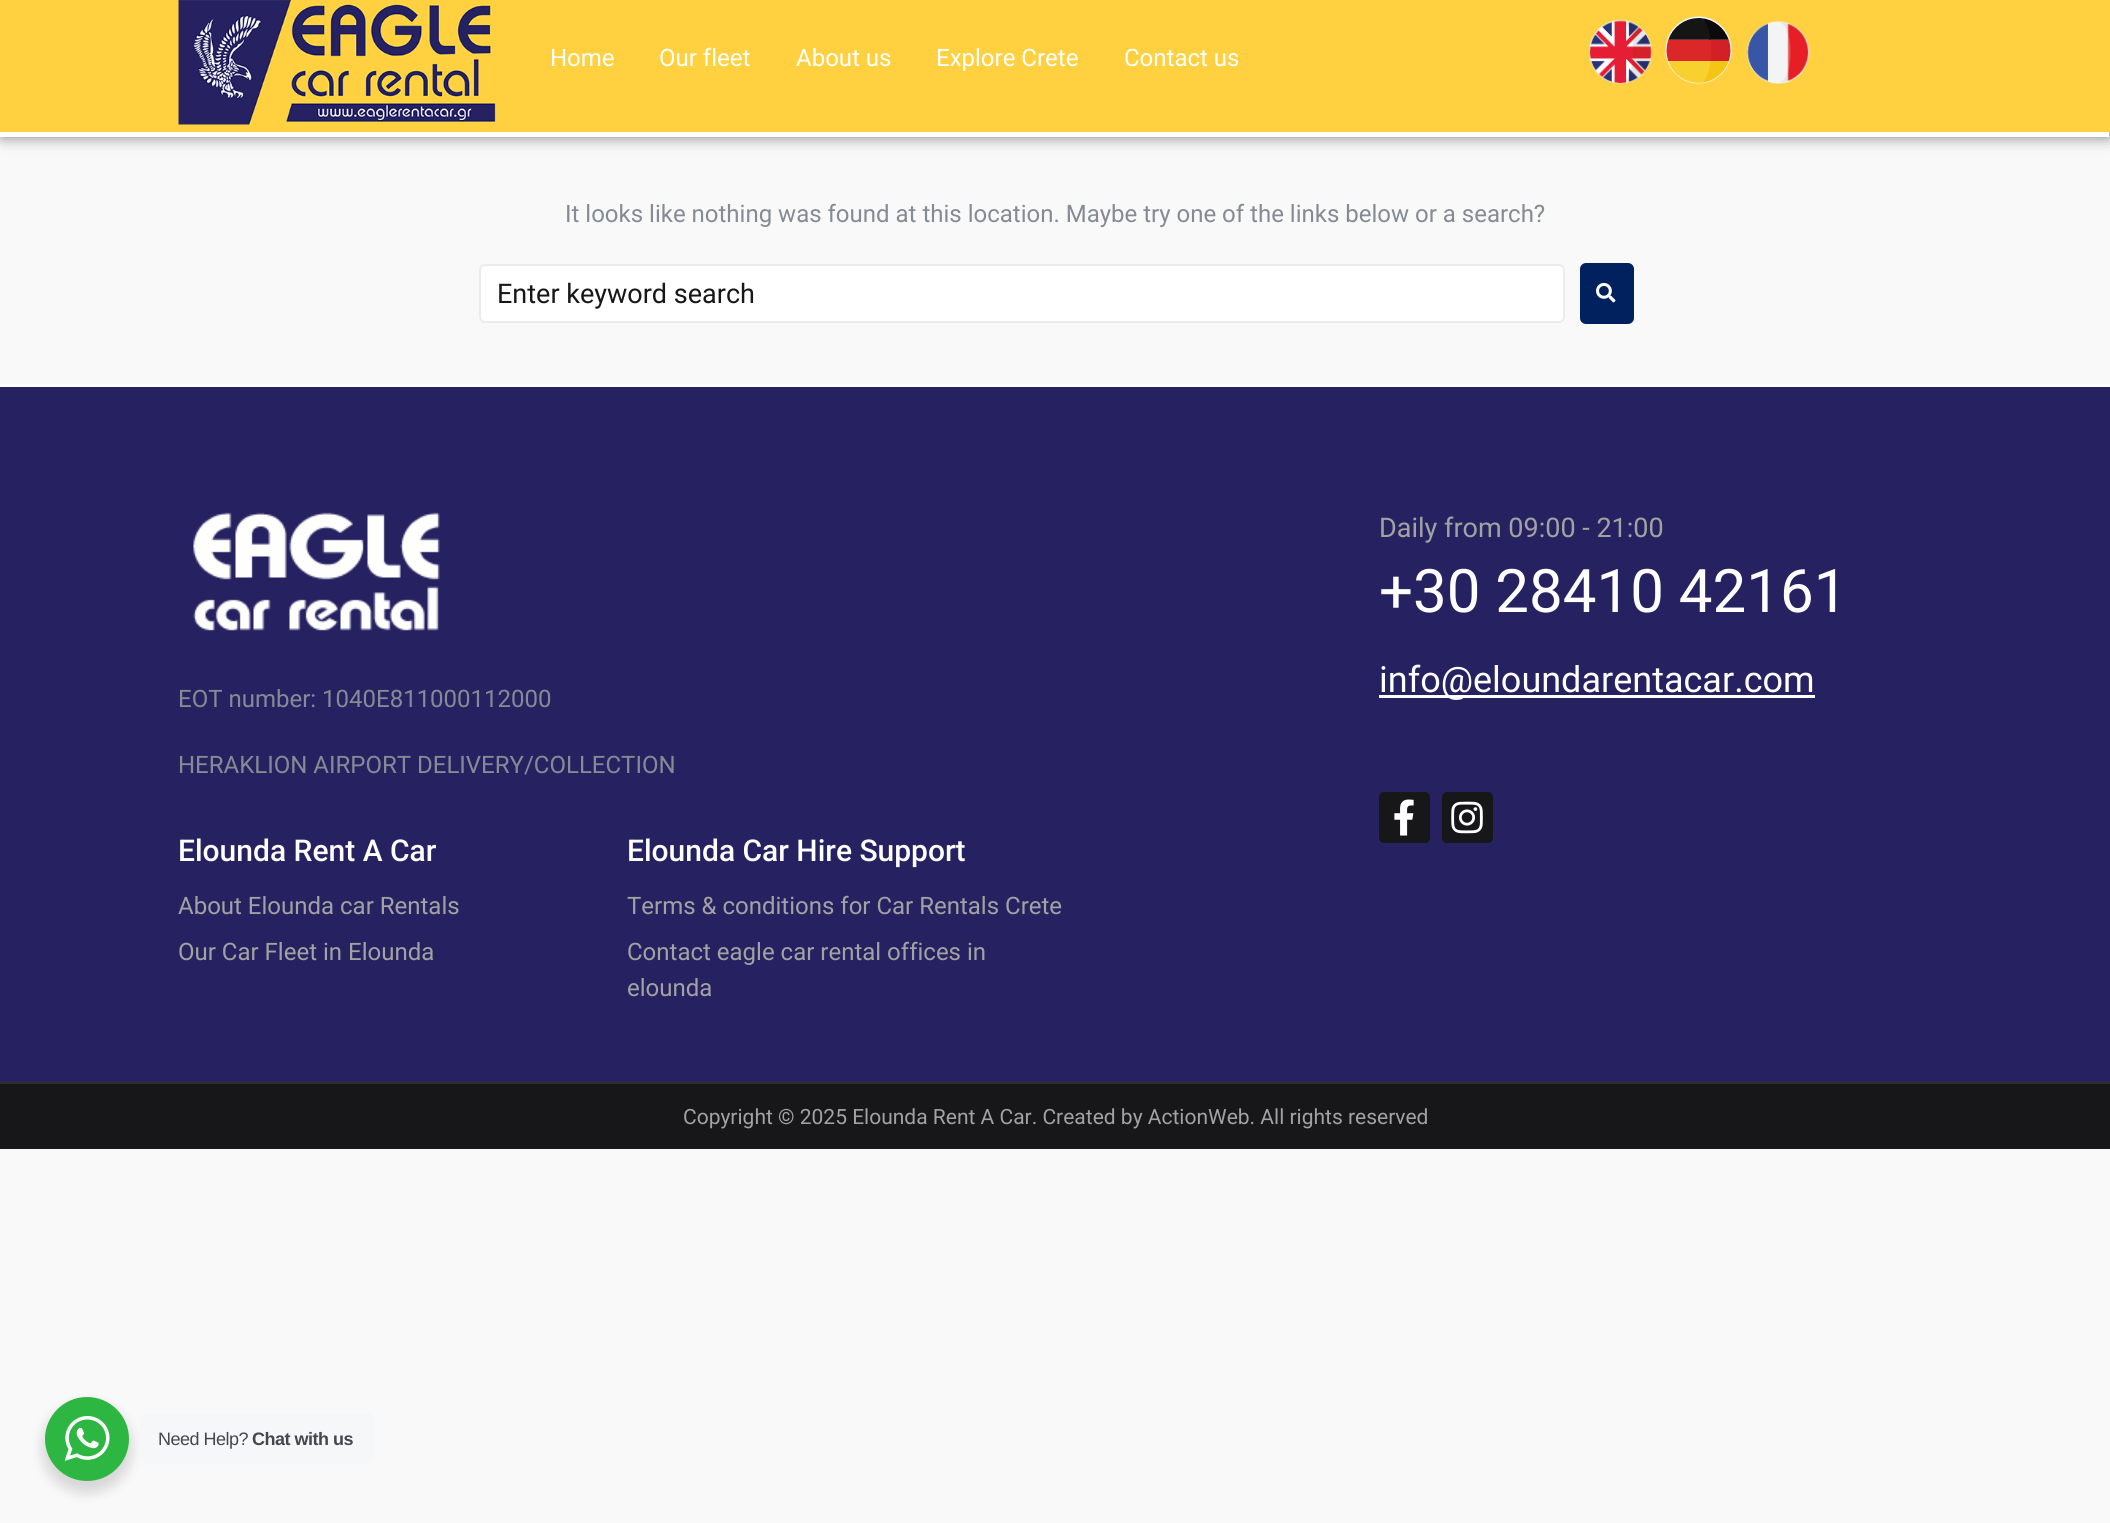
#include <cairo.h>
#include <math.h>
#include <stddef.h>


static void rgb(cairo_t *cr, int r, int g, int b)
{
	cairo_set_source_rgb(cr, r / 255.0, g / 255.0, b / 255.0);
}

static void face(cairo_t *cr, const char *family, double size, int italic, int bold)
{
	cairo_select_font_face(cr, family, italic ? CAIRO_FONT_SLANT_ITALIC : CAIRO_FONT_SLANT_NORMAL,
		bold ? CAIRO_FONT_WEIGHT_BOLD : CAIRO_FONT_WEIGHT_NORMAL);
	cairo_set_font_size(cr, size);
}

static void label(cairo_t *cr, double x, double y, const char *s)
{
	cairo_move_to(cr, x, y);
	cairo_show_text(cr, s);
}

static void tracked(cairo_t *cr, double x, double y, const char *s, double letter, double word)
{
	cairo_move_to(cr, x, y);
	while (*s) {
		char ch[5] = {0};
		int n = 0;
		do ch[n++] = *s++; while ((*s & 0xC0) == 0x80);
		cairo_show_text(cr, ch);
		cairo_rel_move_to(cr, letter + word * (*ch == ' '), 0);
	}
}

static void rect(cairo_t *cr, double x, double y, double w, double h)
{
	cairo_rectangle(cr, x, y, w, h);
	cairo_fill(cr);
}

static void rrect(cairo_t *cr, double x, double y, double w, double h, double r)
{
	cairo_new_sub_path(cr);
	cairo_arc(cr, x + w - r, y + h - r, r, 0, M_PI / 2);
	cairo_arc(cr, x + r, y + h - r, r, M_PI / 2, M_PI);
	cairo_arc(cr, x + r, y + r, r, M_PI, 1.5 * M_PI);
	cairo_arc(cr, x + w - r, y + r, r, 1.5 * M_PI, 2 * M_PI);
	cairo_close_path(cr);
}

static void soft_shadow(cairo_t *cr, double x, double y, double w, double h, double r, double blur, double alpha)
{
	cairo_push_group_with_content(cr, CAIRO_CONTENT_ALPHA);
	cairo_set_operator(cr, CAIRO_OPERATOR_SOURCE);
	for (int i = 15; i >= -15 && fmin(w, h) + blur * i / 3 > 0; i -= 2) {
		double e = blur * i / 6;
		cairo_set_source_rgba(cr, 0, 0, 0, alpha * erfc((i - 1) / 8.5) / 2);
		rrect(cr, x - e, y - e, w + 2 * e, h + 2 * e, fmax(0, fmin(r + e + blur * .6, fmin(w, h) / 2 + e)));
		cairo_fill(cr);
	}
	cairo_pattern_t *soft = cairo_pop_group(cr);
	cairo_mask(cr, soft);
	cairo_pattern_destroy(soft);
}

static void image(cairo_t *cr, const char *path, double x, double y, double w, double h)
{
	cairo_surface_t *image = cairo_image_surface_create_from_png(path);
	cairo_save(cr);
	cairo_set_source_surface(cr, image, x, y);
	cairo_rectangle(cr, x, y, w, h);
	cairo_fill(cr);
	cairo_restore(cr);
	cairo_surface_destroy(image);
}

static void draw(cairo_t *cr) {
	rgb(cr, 249, 249, 249);
	cairo_paint(cr);
	rgb(cr, 0, 0, 0);
	soft_shadow(cr, 0, -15, 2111, 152, 3, 7.5, 0.5);
	rgb(cr, 255, 209, 64);
	rect(cr, 0, 0, 2110, 132);
	rgb(cr, 255, 255, 255);
	rect(cr, 0, 132, 2109, 5);
	image(cr, "image0.png", 178, 0, 318, 125);
	face(cr, "Roboto", 24, 0, 0);
	label(cr, 550, 66, "Home");
	label(cr, 659, 66, "Our fleet");
	label(cr, 796, 66, "About us");
	label(cr, 936, 66, "Explore Crete");
	label(cr, 1124, 66, "Contact us");
	image(cr, "image1.png", 1588, 19, 64, 65);
	image(cr, "image2.png", 1665, 16, 67, 68);
	image(cr, "image3.png", 1747, 21, 63, 63);
	rgb(cr, 133, 139, 148);
	label(cr, 565, 222, "It looks like nothing was found at this location. Maybe try one of the links below or a search?");
	rgb(cr, 255, 255, 255);
	rrect(cr, 480, 265, 1084, 57, 5);
	cairo_fill_preserve(cr);
	rgb(cr, 235, 236, 237);
	cairo_stroke(cr);
	face(cr, "Roboto", 27, 0, 0);
	rgb(cr, 23, 23, 25);
	label(cr, 497, 303, "Enter keyword search");
	rgb(cr, 0, 33, 94);
	rrect(cr, 1580, 263, 54, 61, 6);
	cairo_fill(cr);
	image(cr, "image4.png", 1596, 282, 20, 21);
	rgb(cr, 38, 34, 98);
	rect(cr, 0, 387, 2110, 695);
	rgb(cr, 255, 255, 255);
	rect(cr, 0, 384, 2110, 3);
	rgb(cr, 162, 162, 163);
	label(cr, 1379, 537, "Daily from 09:00 - 21:00");
	face(cr, "Roboto", 60, 0, 0);
	rgb(cr, 255, 255, 255);
	label(cr, 1379, 612, "+30 28410 42161");
	rect(cr, 1379, 695, 436, 3);
	face(cr, "Roboto", 36, 0, 0);
	label(cr, 1379, 692, "info@eloundarentacar.com");
	rgb(cr, 23, 23, 26);
	rrect(cr, 1379, 792, 51, 51, 5);
	cairo_fill(cr);
	image(cr, "image5.png", 1394, 799, 20, 37);
	rrect(cr, 1442, 792, 51, 51, 5);
	cairo_fill(cr);
	image(cr, "image6.png", 1451, 801, 32, 33);
	image(cr, "image7.png", 193, 512, 247, 119);
	face(cr, "Roboto", 24, 0, 0);
	rgb(cr, 133, 139, 148);
	label(cr, 178, 707, "EOT number: 1040Ε811000112000");
	label(cr, 178, 773, "HERAKLION AIRPORT DELIVERY/COLLECTION");
	face(cr, "Roboto Medium", 30, 0, 0);
	rgb(cr, 255, 255, 255);
	label(cr, 178, 861, "Elounda Rent A Car");
	face(cr, "Roboto", 24, 0, 0);
	rgb(cr, 162, 162, 163);
	label(cr, 178, 914, "About Elounda car Rentals");
	label(cr, 178, 960, "Our Car Fleet in Elounda");
	face(cr, "Roboto Medium", 30, 0, 0);
	rgb(cr, 255, 255, 255);
	label(cr, 627, 861, "Elounda Car Hire Support");
	face(cr, "Roboto", 24, 0, 0);
	rgb(cr, 162, 162, 163);
	label(cr, 627, 914, "Terms & conditions for Car Rentals Crete");
	label(cr, 627, 960, "Contact eagle car rental offices in");
	label(cr, 627, 996, "elounda");
	rgb(cr, 23, 23, 26);
	rect(cr, 0, 1084, 2110, 65);
	rgb(cr, 46, 46, 49);
	rect(cr, 0, 1082, 2110, 2);
	face(cr, "Roboto", 21, 0, 0);
	rgb(cr, 162, 162, 163);
	label(cr, 683, 1124, "Copyright © 2025 Elounda Rent A Car. Created by ActionWeb. All rights reserved");
	rgb(cr, 0, 0, 0);
	soft_shadow(cr, 42, 1403, 90, 90, 45, 6, 0.14);
	rgb(cr, 45, 183, 66);
	cairo_arc(cr, 87, 1439, 42, 0, 2 * M_PI);
	cairo_fill(cr);
	image(cr, "image8.png", 65, 1416, 45, 45);
	rgb(cr, 245, 247, 249);
	rrect(cr, 140, 1413, 234, 51, 6);
	cairo_fill(cr);
	face(cr, "Liberation Sans", 18, 0, 0);
	rgb(cr, 67, 71, 78);
	tracked(cr, 158, 1445, "Need Help?", -0.5, 0);
	face(cr, "Liberation Sans", 18, 0, 1);
	tracked(cr, 252, 1445, "Chat with us", -0.5, 0);
}

int main(void) {
	cairo_surface_t *surface = cairo_image_surface_create(CAIRO_FORMAT_RGB24, 2110, 1523);
	cairo_t *cr = cairo_create(surface);
	cairo_font_options_t *options = cairo_font_options_create();
	cairo_font_options_set_hint_metrics(options, CAIRO_HINT_METRICS_OFF);
	cairo_font_options_set_hint_style(options, CAIRO_HINT_STYLE_NONE);
	cairo_set_font_options(cr, options);
	cairo_set_miter_limit(cr, 4);
	draw(cr);
	cairo_surface_write_to_png(surface, "render.png");
	cairo_font_options_destroy(options);
	cairo_destroy(cr);
	cairo_surface_destroy(surface);
	return 0;
}
